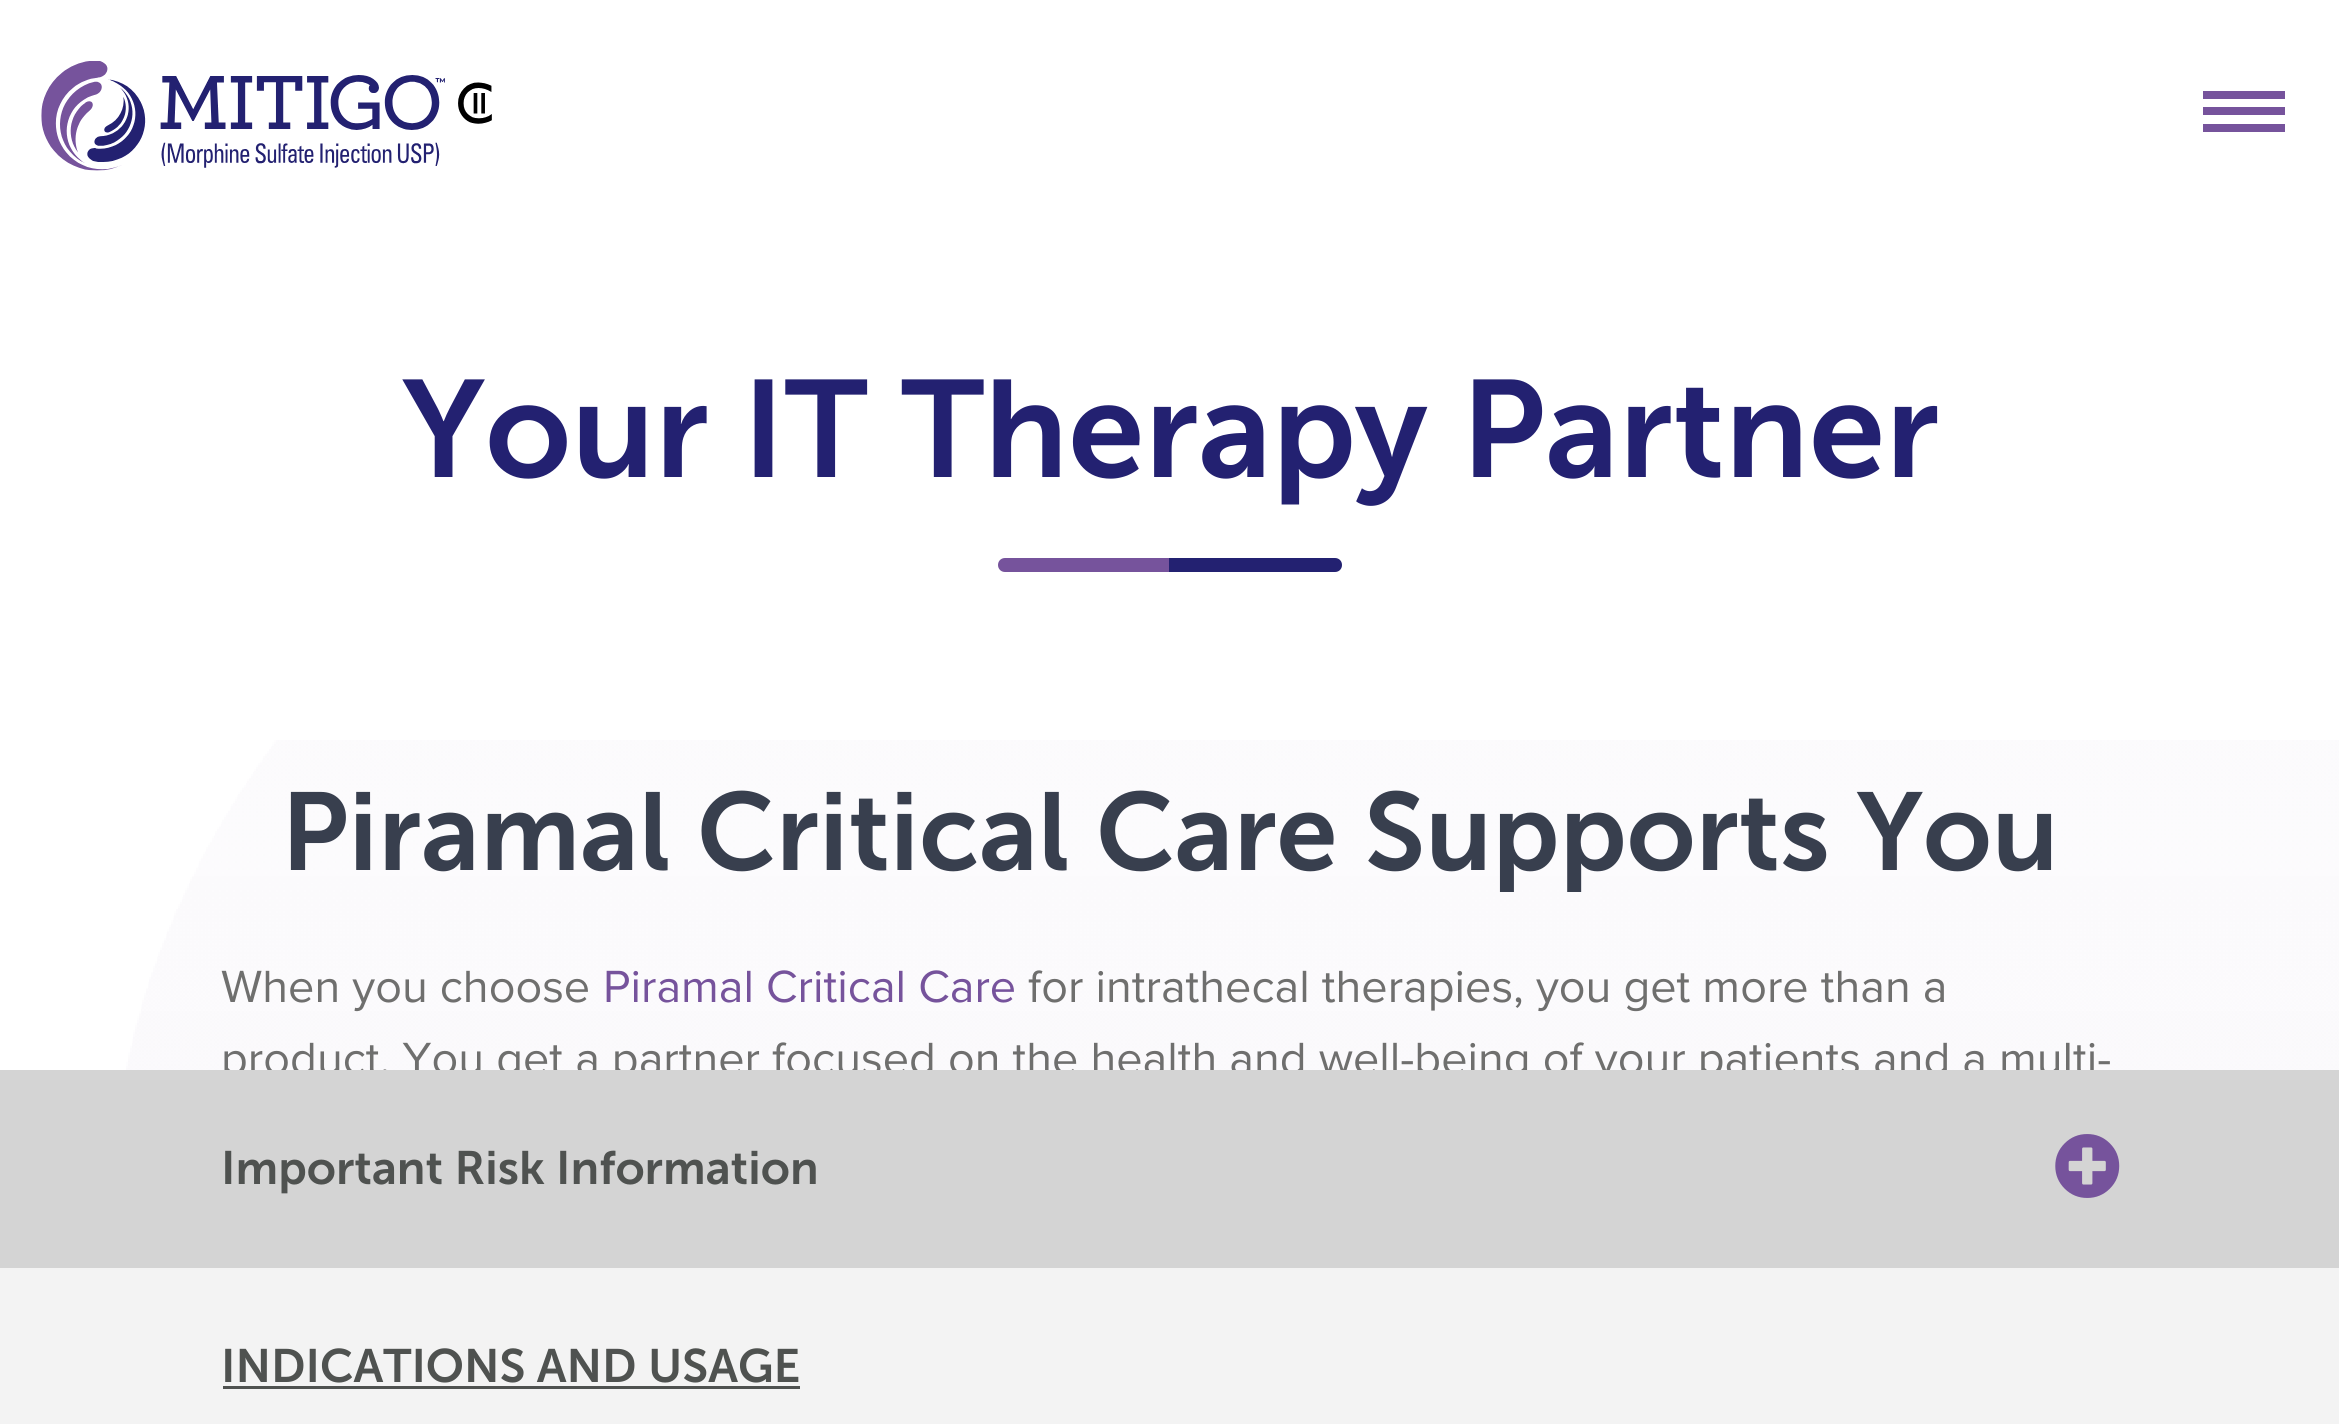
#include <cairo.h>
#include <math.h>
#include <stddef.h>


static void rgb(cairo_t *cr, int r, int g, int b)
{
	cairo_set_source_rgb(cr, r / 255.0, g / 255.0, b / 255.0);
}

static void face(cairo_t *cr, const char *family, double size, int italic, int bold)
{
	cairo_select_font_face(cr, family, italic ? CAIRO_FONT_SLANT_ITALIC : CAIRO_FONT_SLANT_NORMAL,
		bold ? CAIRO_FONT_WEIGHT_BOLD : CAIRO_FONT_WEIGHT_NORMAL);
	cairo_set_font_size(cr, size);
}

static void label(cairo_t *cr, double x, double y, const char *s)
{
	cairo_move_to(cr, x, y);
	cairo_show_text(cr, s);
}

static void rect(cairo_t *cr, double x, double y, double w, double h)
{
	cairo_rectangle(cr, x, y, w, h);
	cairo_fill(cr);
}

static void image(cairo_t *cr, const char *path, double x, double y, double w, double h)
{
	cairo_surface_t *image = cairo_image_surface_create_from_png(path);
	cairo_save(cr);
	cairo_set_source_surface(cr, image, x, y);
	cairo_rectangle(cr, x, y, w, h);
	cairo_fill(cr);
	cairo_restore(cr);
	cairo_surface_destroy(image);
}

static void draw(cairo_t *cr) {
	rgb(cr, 255, 255, 255);
	cairo_paint(cr);
	image(cr, "image0.png", 126, 740, 2213, 330);
	image(cr, "image1.png", 41, 61, 451, 110);
	rgb(cr, 118, 83, 156);
	rect(cr, 2203, 91, 82, 8);
	rect(cr, 2203, 107, 82, 8);
	rect(cr, 2203, 124, 82, 8);
	face(cr, "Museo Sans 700 SemiBold", 137.5, 0, 0);
	rgb(cr, 35, 33, 113);
	label(cr, 402, 477, "Your IT Therapy Partner");
	rgb(cr, 118, 83, 156);
	cairo_new_path(cr);
	cairo_move_to(cr, 1005, 558);
	cairo_line_to(cr, 1169, 558);
	cairo_line_to(cr, 1169, 572);
	cairo_line_to(cr, 1005, 572);
	cairo_curve_to(cr, 1001, 572, 998, 569, 998, 565);
	cairo_curve_to(cr, 998, 561, 1001, 558, 1005, 558);
	cairo_close_path(cr);
	cairo_fill(cr);
	rgb(cr, 35, 33, 113);
	cairo_new_path(cr);
	cairo_move_to(cr, 1169, 558);
	cairo_line_to(cr, 1335, 558);
	cairo_curve_to(cr, 1339, 558, 1342, 561, 1342, 565);
	cairo_curve_to(cr, 1342, 569, 1339, 572, 1335, 572);
	cairo_line_to(cr, 1169, 572);
	cairo_close_path(cr);
	cairo_fill(cr);
	face(cr, "Museo Sans 700 SemiBold", 110, 0, 0);
	rgb(cr, 56, 63, 78);
	label(cr, 281, 870, "Piramal Critical Care Supports You");
	face(cr, "Proxima Nova", 46.75, 0, 0);
	rgb(cr, 111, 111, 110);
	label(cr, 221, 1002, "When you choose");
	rgb(cr, 118, 83, 156);
	label(cr, 603, 1002, "Piramal Critical Care");
	rgb(cr, 111, 111, 110);
	label(cr, 1028, 1002, "for intrathecal therapies, you get more than a");
	label(cr, 221, 1074, "product. You get a partner focused on the health and well-being of your patients and a multi-");
	rgb(cr, 243, 243, 243);
	rect(cr, 0, 1268, 2339, 156);
	rgb(cr, 212, 212, 212);
	rect(cr, 0, 1070, 2339, 198);
	face(cr, "Museo Sans 700 SemiBold", 46.75, 0, 0);
	rgb(cr, 79, 82, 80);
	label(cr, 221, 1184, "Important Risk Information");
	image(cr, "image2.png", 2055, 1134, 65, 64);
	label(cr, 221, 1382, "INDICATIONS AND USAGE");
	rect(cr, 223, 1386, 577, 3);
}

int main(void) {
	cairo_surface_t *surface = cairo_image_surface_create(CAIRO_FORMAT_RGB24, 2339, 1424);
	cairo_t *cr = cairo_create(surface);
	cairo_font_options_t *options = cairo_font_options_create();
	cairo_font_options_set_hint_metrics(options, CAIRO_HINT_METRICS_OFF);
	cairo_font_options_set_hint_style(options, CAIRO_HINT_STYLE_NONE);
	cairo_set_font_options(cr, options);
	cairo_set_miter_limit(cr, 4);
	draw(cr);
	cairo_surface_write_to_png(surface, "render.png");
	cairo_font_options_destroy(options);
	cairo_destroy(cr);
	cairo_surface_destroy(surface);
	return 0;
}
